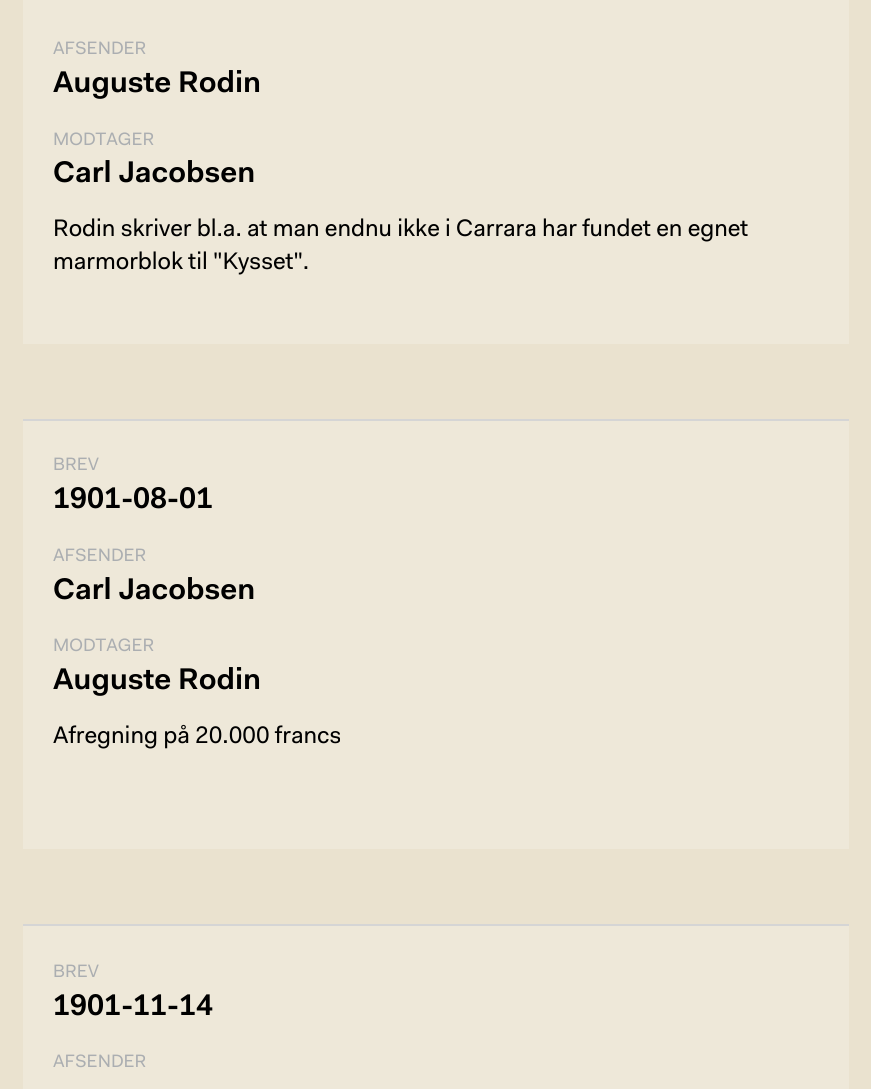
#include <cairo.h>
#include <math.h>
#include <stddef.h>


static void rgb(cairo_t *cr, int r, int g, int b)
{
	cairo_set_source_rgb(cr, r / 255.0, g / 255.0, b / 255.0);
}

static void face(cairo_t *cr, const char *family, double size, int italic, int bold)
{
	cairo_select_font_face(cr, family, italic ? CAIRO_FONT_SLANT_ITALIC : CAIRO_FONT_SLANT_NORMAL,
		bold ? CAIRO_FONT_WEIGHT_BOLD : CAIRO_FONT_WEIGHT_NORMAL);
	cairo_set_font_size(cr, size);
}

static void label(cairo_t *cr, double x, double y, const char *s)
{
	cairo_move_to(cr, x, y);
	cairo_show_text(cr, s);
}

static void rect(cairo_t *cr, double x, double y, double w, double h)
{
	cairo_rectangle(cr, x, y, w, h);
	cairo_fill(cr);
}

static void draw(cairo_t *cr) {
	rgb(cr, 234, 226, 207);
	cairo_paint(cr);
	rgb(cr, 238, 232, 217);
	rect(cr, 23, 0, 826, 344);
	face(cr, "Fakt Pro", 18, 0, 0);
	rgb(cr, 171, 174, 177);
	label(cr, 53, 54, "AFSENDER");
	face(cr, "Fakt Pro SemiBold", 30, 0, 0);
	rgb(cr, 0, 0, 0);
	label(cr, 53, 92, "Auguste Rodin");
	face(cr, "Fakt Pro", 18, 0, 0);
	rgb(cr, 171, 174, 177);
	label(cr, 53, 145, "MODTAGER");
	face(cr, "Fakt Pro SemiBold", 30, 0, 0);
	rgb(cr, 0, 0, 0);
	label(cr, 53, 182, "Carl Jacobsen");
	face(cr, "Fakt Pro", 24, 0, 0);
	label(cr, 53, 236, "Rodin skriver bl.a. at man endnu ikke i Carrara har fundet en egnet");
	label(cr, 53, 269, "marmorblok til \"Kysset\".");
	rgb(cr, 238, 232, 217);
	rect(cr, 23, 421, 826, 428);
	rgb(cr, 213, 213, 213);
	rect(cr, 23, 419, 826, 2);
	face(cr, "Fakt Pro", 18, 0, 0);
	rgb(cr, 171, 174, 177);
	label(cr, 53, 470, "BREV");
	face(cr, "Fakt Pro SemiBold", 30, 0, 0);
	rgb(cr, 0, 0, 0);
	label(cr, 53, 508, "1901-08-01");
	face(cr, "Fakt Pro", 18, 0, 0);
	rgb(cr, 171, 174, 177);
	label(cr, 53, 561, "AFSENDER");
	face(cr, "Fakt Pro SemiBold", 30, 0, 0);
	rgb(cr, 0, 0, 0);
	label(cr, 53, 599, "Carl Jacobsen");
	face(cr, "Fakt Pro", 18, 0, 0);
	rgb(cr, 171, 174, 177);
	label(cr, 53, 651, "MODTAGER");
	face(cr, "Fakt Pro SemiBold", 30, 0, 0);
	rgb(cr, 0, 0, 0);
	label(cr, 53, 689, "Auguste Rodin");
	face(cr, "Fakt Pro", 24, 0, 0);
	label(cr, 53, 743, "Afregning på 20.000 francs");
	rgb(cr, 238, 232, 217);
	rect(cr, 23, 926, 826, 163);
	rgb(cr, 213, 213, 213);
	rect(cr, 23, 924, 826, 2);
	face(cr, "Fakt Pro", 18, 0, 0);
	rgb(cr, 171, 174, 177);
	label(cr, 53, 977, "BREV");
	face(cr, "Fakt Pro SemiBold", 30, 0, 0);
	rgb(cr, 0, 0, 0);
	label(cr, 53, 1015, "1901-11-14");
	face(cr, "Fakt Pro", 18, 0, 0);
	rgb(cr, 171, 174, 177);
	label(cr, 53, 1067, "AFSENDER");
}

int main(void) {
	cairo_surface_t *surface = cairo_image_surface_create(CAIRO_FORMAT_RGB24, 871, 1089);
	cairo_t *cr = cairo_create(surface);
	cairo_font_options_t *options = cairo_font_options_create();
	cairo_font_options_set_hint_metrics(options, CAIRO_HINT_METRICS_OFF);
	cairo_font_options_set_hint_style(options, CAIRO_HINT_STYLE_NONE);
	cairo_set_font_options(cr, options);
	cairo_set_miter_limit(cr, 4);
	draw(cr);
	cairo_surface_write_to_png(surface, "render.png");
	cairo_font_options_destroy(options);
	cairo_destroy(cr);
	cairo_surface_destroy(surface);
	return 0;
}
